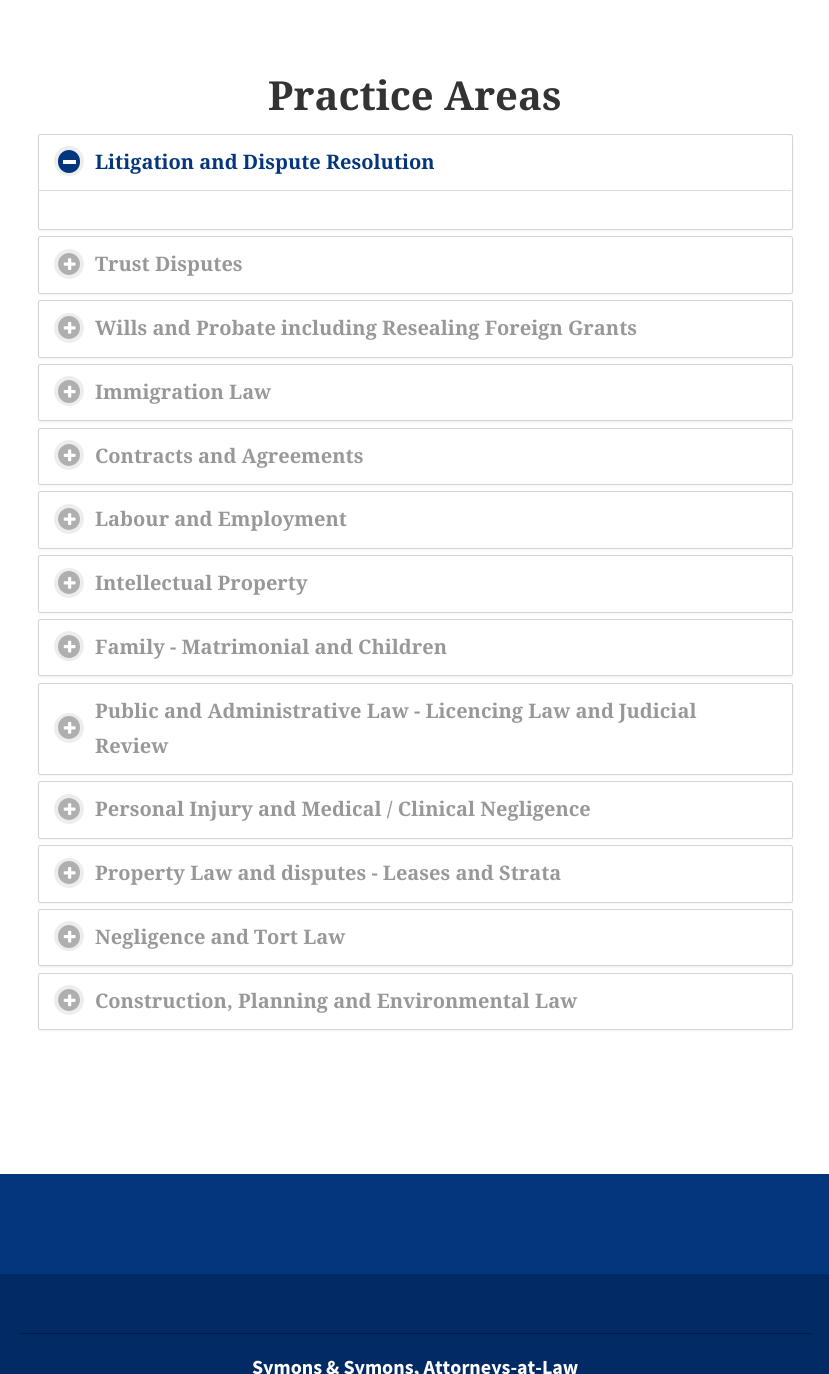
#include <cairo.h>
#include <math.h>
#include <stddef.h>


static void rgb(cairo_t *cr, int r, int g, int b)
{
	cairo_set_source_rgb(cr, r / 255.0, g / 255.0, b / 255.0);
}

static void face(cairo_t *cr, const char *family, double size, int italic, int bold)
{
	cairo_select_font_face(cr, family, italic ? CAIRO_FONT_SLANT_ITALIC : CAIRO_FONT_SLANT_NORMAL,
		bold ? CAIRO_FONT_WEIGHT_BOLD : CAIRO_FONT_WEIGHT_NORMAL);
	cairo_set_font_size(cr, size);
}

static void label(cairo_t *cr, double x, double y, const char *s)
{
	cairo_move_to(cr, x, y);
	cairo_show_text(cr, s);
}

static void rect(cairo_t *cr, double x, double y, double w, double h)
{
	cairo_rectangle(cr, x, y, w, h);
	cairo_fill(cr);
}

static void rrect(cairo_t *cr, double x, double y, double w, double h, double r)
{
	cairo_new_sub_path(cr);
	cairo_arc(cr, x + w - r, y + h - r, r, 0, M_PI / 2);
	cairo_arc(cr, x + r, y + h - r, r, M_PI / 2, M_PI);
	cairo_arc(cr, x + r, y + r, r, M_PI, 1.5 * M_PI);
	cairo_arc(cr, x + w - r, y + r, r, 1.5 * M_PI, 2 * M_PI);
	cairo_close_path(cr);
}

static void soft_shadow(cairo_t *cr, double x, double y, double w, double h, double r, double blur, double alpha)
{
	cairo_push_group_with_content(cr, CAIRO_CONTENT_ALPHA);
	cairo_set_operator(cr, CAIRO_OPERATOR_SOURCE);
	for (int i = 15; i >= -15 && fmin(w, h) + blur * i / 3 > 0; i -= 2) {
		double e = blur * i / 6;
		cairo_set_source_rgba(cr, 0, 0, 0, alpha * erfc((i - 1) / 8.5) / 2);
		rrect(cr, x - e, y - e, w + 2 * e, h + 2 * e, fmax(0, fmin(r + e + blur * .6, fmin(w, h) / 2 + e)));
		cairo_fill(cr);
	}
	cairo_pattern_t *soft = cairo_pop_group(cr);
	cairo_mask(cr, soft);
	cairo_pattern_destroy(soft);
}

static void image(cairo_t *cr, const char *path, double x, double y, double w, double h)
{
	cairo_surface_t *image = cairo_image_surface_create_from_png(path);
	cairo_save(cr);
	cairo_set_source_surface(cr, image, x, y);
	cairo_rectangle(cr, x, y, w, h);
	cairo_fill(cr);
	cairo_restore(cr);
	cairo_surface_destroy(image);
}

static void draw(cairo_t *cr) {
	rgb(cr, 255, 255, 255);
	cairo_paint(cr);
	face(cr, "Droid Serif", 40, 0, 1);
	rgb(cr, 51, 51, 51);
	label(cr, 268, 110, "Practice Areas");
	rgb(cr, 0, 0, 0);
	soft_shadow(cr, 38, 135, 755, 96, 2.5, 1, 0.05);
	rgb(cr, 255, 255, 255);
	rrect(cr, 38.5, 134.5, 754, 95, 2);
	cairo_fill_preserve(cr);
	rgb(cr, 212, 212, 212);
	cairo_set_line_width(cr, 1);
	cairo_stroke(cr);
	cairo_arc(cr, 69, 161, 13, 0, 2 * M_PI);
	rgb(cr, 237, 237, 237);
	cairo_set_line_width(cr, 4);
	cairo_stroke(cr);
	rgb(cr, 4, 54, 125);
	rrect(cr, 58, 150, 22, 23, 11);
	cairo_fill(cr);
	rgb(cr, 255, 255, 255);
	rect(cr, 63, 160, 13, 4);
	face(cr, "Droid Serif", 20, 0, 1);
	rgb(cr, 4, 54, 125);
	label(cr, 95, 169, "Litigation and Dispute Resolution");
	rgb(cr, 221, 221, 221);
	rect(cr, 39, 190, 752, 1);
	rgb(cr, 0, 0, 0);
	soft_shadow(cr, 38, 238, 755, 57, 2.5, 1, 0.05);
	rgb(cr, 255, 255, 255);
	rrect(cr, 38.5, 236.5, 754, 57, 2);
	cairo_fill_preserve(cr);
	rgb(cr, 212, 212, 212);
	cairo_set_line_width(cr, 1);
	cairo_stroke(cr);
	cairo_arc(cr, 69, 264, 13, 0, 2 * M_PI);
	rgb(cr, 237, 237, 237);
	cairo_set_line_width(cr, 4);
	cairo_stroke(cr);
	rgb(cr, 175, 175, 175);
	cairo_arc(cr, 69, 264, 11, 0, 2 * M_PI);
	cairo_fill(cr);
	image(cr, "image0.png", 63, 258, 13, 12);
	rgb(cr, 152, 152, 152);
	label(cr, 95, 271, "Trust Disputes");
	rgb(cr, 0, 0, 0);
	soft_shadow(cr, 38, 301, 755, 58, 2.5, 1, 0.05);
	rgb(cr, 255, 255, 255);
	rrect(cr, 38.5, 300.5, 754, 57, 2);
	cairo_fill_preserve(cr);
	rgb(cr, 212, 212, 212);
	cairo_set_line_width(cr, 1);
	cairo_stroke(cr);
	cairo_arc(cr, 69, 328, 13, 0, 2 * M_PI);
	rgb(cr, 237, 237, 237);
	cairo_set_line_width(cr, 4);
	cairo_stroke(cr);
	rgb(cr, 175, 175, 175);
	rrect(cr, 58, 316, 22, 23, 11);
	cairo_fill(cr);
	image(cr, "image1.png", 63, 321, 13, 13);
	rgb(cr, 152, 152, 152);
	label(cr, 95, 335, "Wills and Probate including Resealing Foreign Grants");
	rgb(cr, 0, 0, 0);
	soft_shadow(cr, 38, 365, 755, 58, 2.5, 1, 0.05);
	rgb(cr, 255, 255, 255);
	rrect(cr, 38.5, 364.5, 754, 56, 2);
	cairo_fill_preserve(cr);
	rgb(cr, 212, 212, 212);
	cairo_set_line_width(cr, 1);
	cairo_stroke(cr);
	cairo_arc(cr, 69, 391, 13, 0, 2 * M_PI);
	rgb(cr, 237, 237, 237);
	cairo_set_line_width(cr, 4);
	cairo_stroke(cr);
	rgb(cr, 175, 175, 175);
	rrect(cr, 58, 380, 22, 23, 11);
	cairo_fill(cr);
	image(cr, "image2.png", 63, 385, 13, 13);
	rgb(cr, 152, 152, 152);
	label(cr, 95, 399, "Immigration Law");
	rgb(cr, 0, 0, 0);
	soft_shadow(cr, 38, 429, 755, 57, 2.5, 1, 0.05);
	rgb(cr, 255, 255, 255);
	rrect(cr, 38.5, 428.5, 754, 56, 2);
	cairo_fill_preserve(cr);
	rgb(cr, 212, 212, 212);
	cairo_set_line_width(cr, 1);
	cairo_stroke(cr);
	cairo_arc(cr, 69, 455, 13, 0, 2 * M_PI);
	rgb(cr, 237, 237, 237);
	cairo_set_line_width(cr, 4);
	cairo_stroke(cr);
	rgb(cr, 175, 175, 175);
	cairo_arc(cr, 69, 455, 11, 0, 2 * M_PI);
	cairo_fill(cr);
	image(cr, "image3.png", 63, 449, 13, 13);
	rgb(cr, 152, 152, 152);
	label(cr, 95, 463, "Contracts and Agreements");
	rgb(cr, 0, 0, 0);
	soft_shadow(cr, 38, 493, 755, 57, 2.5, 1, 0.05);
	rgb(cr, 255, 255, 255);
	rrect(cr, 38.5, 491.5, 754, 57, 2);
	cairo_fill_preserve(cr);
	rgb(cr, 212, 212, 212);
	cairo_set_line_width(cr, 1);
	cairo_stroke(cr);
	cairo_arc(cr, 69, 519, 13, 0, 2 * M_PI);
	rgb(cr, 237, 237, 237);
	cairo_set_line_width(cr, 4);
	cairo_stroke(cr);
	rgb(cr, 175, 175, 175);
	cairo_arc(cr, 69, 519, 11, 0, 2 * M_PI);
	cairo_fill(cr);
	image(cr, "image0.png", 63, 513, 13, 12);
	rgb(cr, 152, 152, 152);
	label(cr, 95, 526, "Labour and Employment");
	rgb(cr, 0, 0, 0);
	soft_shadow(cr, 38, 556, 755, 58, 2.5, 1, 0.05);
	rgb(cr, 255, 255, 255);
	rrect(cr, 38.5, 555.5, 754, 57, 2);
	cairo_fill_preserve(cr);
	rgb(cr, 212, 212, 212);
	cairo_set_line_width(cr, 1);
	cairo_stroke(cr);
	cairo_arc(cr, 69, 583, 13, 0, 2 * M_PI);
	rgb(cr, 237, 237, 237);
	cairo_set_line_width(cr, 4);
	cairo_stroke(cr);
	rgb(cr, 175, 175, 175);
	rrect(cr, 58, 571, 22, 23, 11);
	cairo_fill(cr);
	image(cr, "image1.png", 63, 576, 13, 13);
	rgb(cr, 152, 152, 152);
	label(cr, 95, 590, "Intellectual Property");
	rgb(cr, 0, 0, 0);
	soft_shadow(cr, 38, 620, 755, 58, 2.5, 1, 0.05);
	rgb(cr, 255, 255, 255);
	rrect(cr, 38.5, 619.5, 754, 56, 2);
	cairo_fill_preserve(cr);
	rgb(cr, 212, 212, 212);
	cairo_set_line_width(cr, 1);
	cairo_stroke(cr);
	cairo_arc(cr, 69, 646, 13, 0, 2 * M_PI);
	rgb(cr, 237, 237, 237);
	cairo_set_line_width(cr, 4);
	cairo_stroke(cr);
	rgb(cr, 175, 175, 175);
	rrect(cr, 58, 635, 22, 23, 11);
	cairo_fill(cr);
	image(cr, "image2.png", 63, 640, 13, 13);
	rgb(cr, 152, 152, 152);
	label(cr, 95, 654, "Family - Matrimonial and Children");
	rgb(cr, 0, 0, 0);
	soft_shadow(cr, 38, 684, 755, 92, 2.5, 1, 0.05);
	rgb(cr, 255, 255, 255);
	rrect(cr, 38.5, 683.5, 754, 91, 2);
	cairo_fill_preserve(cr);
	rgb(cr, 212, 212, 212);
	cairo_set_line_width(cr, 1);
	cairo_stroke(cr);
	cairo_arc(cr, 69, 728, 13, 0, 2 * M_PI);
	rgb(cr, 237, 237, 237);
	cairo_set_line_width(cr, 4);
	cairo_stroke(cr);
	rgb(cr, 175, 175, 175);
	rrect(cr, 58, 716, 22, 23, 11);
	cairo_fill(cr);
	image(cr, "image1.png", 63, 721, 13, 13);
	rgb(cr, 152, 152, 152);
	label(cr, 95, 718, "Public and Administrative Law - Licencing Law and Judicial");
	label(cr, 95, 753, "Review");
	rgb(cr, 0, 0, 0);
	soft_shadow(cr, 38, 783, 755, 57, 2.5, 1, 0.05);
	rgb(cr, 255, 255, 255);
	rrect(cr, 38.5, 781.5, 754, 57, 2);
	cairo_fill_preserve(cr);
	rgb(cr, 212, 212, 212);
	cairo_set_line_width(cr, 1);
	cairo_stroke(cr);
	cairo_arc(cr, 69, 809, 13, 0, 2 * M_PI);
	rgb(cr, 237, 237, 237);
	cairo_set_line_width(cr, 4);
	cairo_stroke(cr);
	rgb(cr, 175, 175, 175);
	cairo_arc(cr, 69, 809, 11, 0, 2 * M_PI);
	cairo_fill(cr);
	image(cr, "image0.png", 63, 803, 13, 12);
	rgb(cr, 152, 152, 152);
	label(cr, 95, 816, "Personal Injury and Medical / Clinical Negligence");
	rgb(cr, 0, 0, 0);
	soft_shadow(cr, 38, 846, 755, 58, 2.5, 1, 0.05);
	rgb(cr, 255, 255, 255);
	rrect(cr, 38.5, 845.5, 754, 57, 2);
	cairo_fill_preserve(cr);
	rgb(cr, 212, 212, 212);
	cairo_set_line_width(cr, 1);
	cairo_stroke(cr);
	cairo_arc(cr, 69, 873, 13, 0, 2 * M_PI);
	rgb(cr, 237, 237, 237);
	cairo_set_line_width(cr, 4);
	cairo_stroke(cr);
	rgb(cr, 175, 175, 175);
	rrect(cr, 58, 861, 22, 23, 11);
	cairo_fill(cr);
	image(cr, "image1.png", 63, 866, 13, 13);
	rgb(cr, 152, 152, 152);
	label(cr, 95, 880, "Property Law and disputes - Leases and Strata");
	rgb(cr, 0, 0, 0);
	soft_shadow(cr, 38, 910, 755, 58, 2.5, 1, 0.05);
	rgb(cr, 255, 255, 255);
	rrect(cr, 38.5, 909.5, 754, 56, 2);
	cairo_fill_preserve(cr);
	rgb(cr, 212, 212, 212);
	cairo_set_line_width(cr, 1);
	cairo_stroke(cr);
	cairo_arc(cr, 69, 936, 13, 0, 2 * M_PI);
	rgb(cr, 237, 237, 237);
	cairo_set_line_width(cr, 4);
	cairo_stroke(cr);
	rgb(cr, 175, 175, 175);
	rrect(cr, 58, 925, 22, 23, 11);
	cairo_fill(cr);
	image(cr, "image2.png", 63, 930, 13, 13);
	rgb(cr, 152, 152, 152);
	label(cr, 95, 944, "Negligence and Tort Law");
	rgb(cr, 0, 0, 0);
	soft_shadow(cr, 38, 974, 755, 57, 2.5, 1, 0.05);
	rgb(cr, 255, 255, 255);
	rrect(cr, 38.5, 973.5, 754, 56, 2);
	cairo_fill_preserve(cr);
	rgb(cr, 212, 212, 212);
	cairo_set_line_width(cr, 1);
	cairo_stroke(cr);
	cairo_arc(cr, 69, 1000, 13, 0, 2 * M_PI);
	rgb(cr, 237, 237, 237);
	cairo_set_line_width(cr, 4);
	cairo_stroke(cr);
	rgb(cr, 175, 175, 175);
	cairo_arc(cr, 69, 1000, 11, 0, 2 * M_PI);
	cairo_fill(cr);
	image(cr, "image3.png", 63, 994, 13, 13);
	rgb(cr, 152, 152, 152);
	label(cr, 95, 1008, "Construction, Planning and Environmental Law");
	rgb(cr, 4, 54, 125);
	rect(cr, 0, 1174, 829, 100);
	rgb(cr, 2, 42, 100);
	rect(cr, 0, 1274, 829, 100);
	rgb(cr, 1, 29, 70);
	rect(cr, 19, 1333, 792, 1);
	face(cr, "Source Sans Pro", 20, 0, 1);
	rgb(cr, 255, 255, 255);
	label(cr, 252, 1374, "Symons & Symons, Attorneys-at-Law");
}

int main(void) {
	cairo_surface_t *surface = cairo_image_surface_create(CAIRO_FORMAT_RGB24, 829, 1374);
	cairo_t *cr = cairo_create(surface);
	cairo_font_options_t *options = cairo_font_options_create();
	cairo_font_options_set_hint_metrics(options, CAIRO_HINT_METRICS_OFF);
	cairo_font_options_set_hint_style(options, CAIRO_HINT_STYLE_NONE);
	cairo_set_font_options(cr, options);
	cairo_set_miter_limit(cr, 4);
	draw(cr);
	cairo_surface_write_to_png(surface, "render.png");
	cairo_font_options_destroy(options);
	cairo_destroy(cr);
	cairo_surface_destroy(surface);
	return 0;
}
